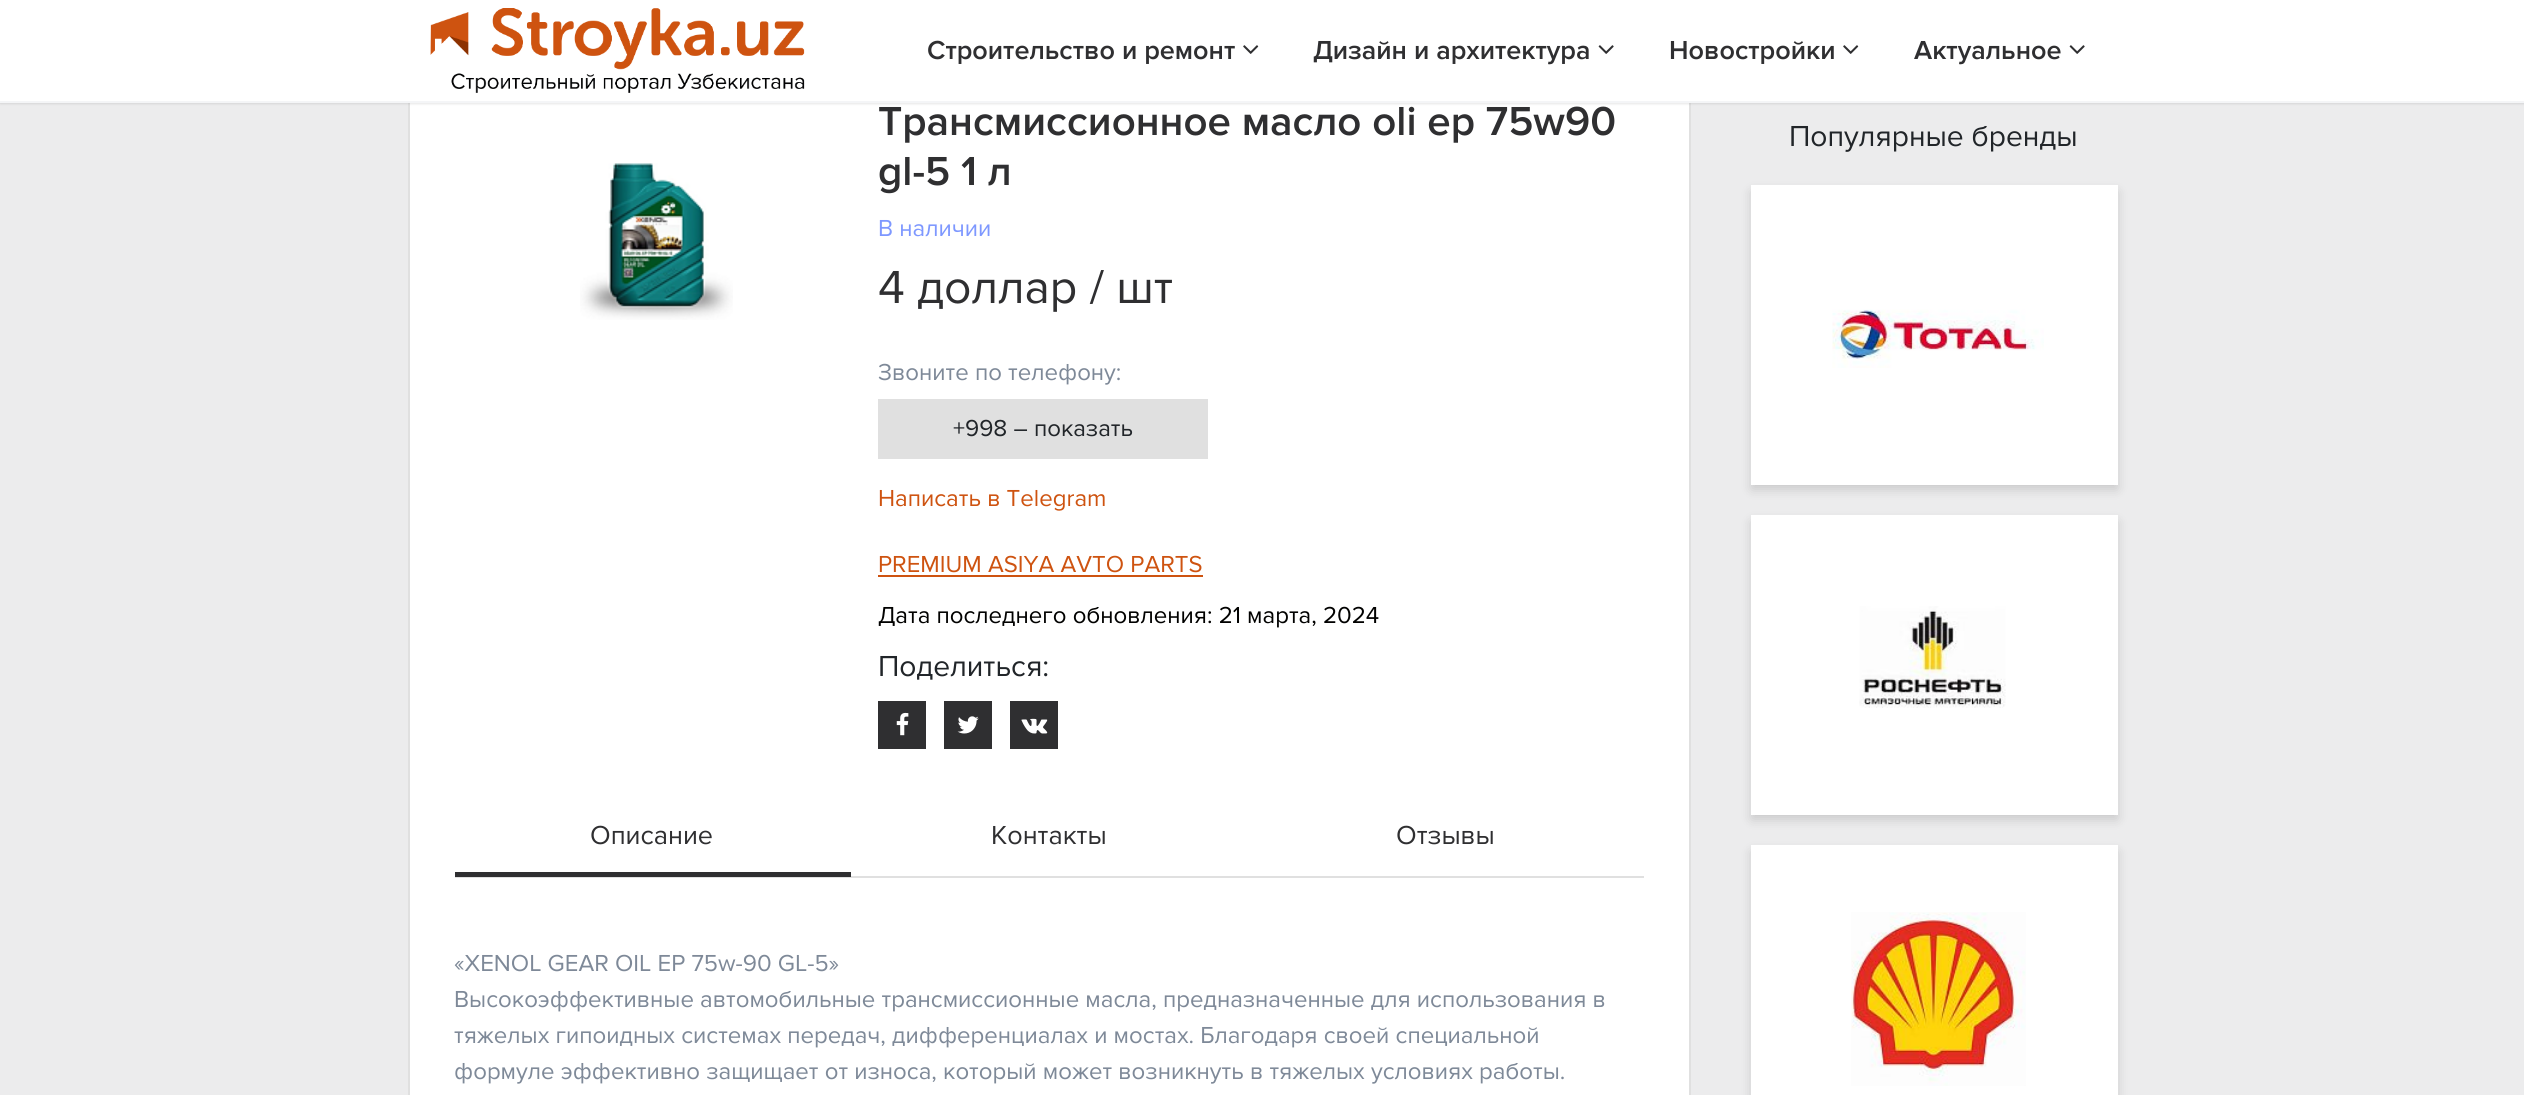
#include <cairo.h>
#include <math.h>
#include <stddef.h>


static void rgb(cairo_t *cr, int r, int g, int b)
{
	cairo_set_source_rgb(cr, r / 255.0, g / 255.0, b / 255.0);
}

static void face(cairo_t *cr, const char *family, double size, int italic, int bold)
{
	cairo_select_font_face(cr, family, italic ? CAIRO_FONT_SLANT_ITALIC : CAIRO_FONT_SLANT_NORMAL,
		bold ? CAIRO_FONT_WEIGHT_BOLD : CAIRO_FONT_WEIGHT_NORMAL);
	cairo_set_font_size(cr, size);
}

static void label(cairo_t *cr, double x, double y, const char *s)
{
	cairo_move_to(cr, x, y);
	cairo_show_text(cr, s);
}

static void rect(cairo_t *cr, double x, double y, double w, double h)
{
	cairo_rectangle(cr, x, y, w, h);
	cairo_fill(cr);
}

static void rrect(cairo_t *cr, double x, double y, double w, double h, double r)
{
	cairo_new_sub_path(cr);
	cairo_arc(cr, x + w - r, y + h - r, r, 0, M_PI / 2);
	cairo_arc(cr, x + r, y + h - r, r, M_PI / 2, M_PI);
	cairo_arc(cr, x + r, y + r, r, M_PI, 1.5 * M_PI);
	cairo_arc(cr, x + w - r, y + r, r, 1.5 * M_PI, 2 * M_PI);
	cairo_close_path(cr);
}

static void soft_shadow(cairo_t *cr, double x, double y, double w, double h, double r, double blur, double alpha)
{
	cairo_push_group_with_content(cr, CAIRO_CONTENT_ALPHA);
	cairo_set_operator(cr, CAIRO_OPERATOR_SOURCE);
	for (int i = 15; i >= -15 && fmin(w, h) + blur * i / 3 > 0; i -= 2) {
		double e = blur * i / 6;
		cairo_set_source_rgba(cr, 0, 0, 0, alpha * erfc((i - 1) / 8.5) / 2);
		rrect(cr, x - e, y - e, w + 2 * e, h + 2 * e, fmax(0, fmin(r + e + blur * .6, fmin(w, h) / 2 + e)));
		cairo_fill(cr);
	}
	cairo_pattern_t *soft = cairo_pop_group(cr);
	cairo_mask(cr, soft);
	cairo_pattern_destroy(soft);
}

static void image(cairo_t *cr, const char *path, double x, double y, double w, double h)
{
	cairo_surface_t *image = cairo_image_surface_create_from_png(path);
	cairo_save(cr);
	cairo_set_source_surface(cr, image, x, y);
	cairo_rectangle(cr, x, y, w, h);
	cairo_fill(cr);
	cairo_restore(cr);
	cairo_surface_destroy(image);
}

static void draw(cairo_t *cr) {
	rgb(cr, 236, 236, 237);
	cairo_paint(cr);
	rgb(cr, 255, 255, 255);
	rect(cr, 410, 103, 1279, 992);
	cairo_rectangle(cr, 409, 45, 1281, 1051);
	rgb(cr, 224, 224, 224);
	cairo_stroke(cr);
	rgb(cr, 0, 0, 0);
	soft_shadow(cr, 0, 0, 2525, 102, 0, 2, 0.3);
	rgb(cr, 255, 255, 255);
	rect(cr, 0, 0, 2524, 101);
	rgb(cr, 244, 245, 247);
	rect(cr, 0, 101, 2524, 2);
	image(cr, "image0.png", 430, 8, 375, 85);
	face(cr, "Proxima Nova SemiBold", 27, 0, 0);
	rgb(cr, 47, 47, 49);
	label(cr, 927, 59, "Строительство и ремонт");
	image(cr, "image1.png", 1243, 45, 16, 9);
	label(cr, 1313, 59, "Дизайн и архитектура");
	image(cr, "image2.png", 1598, 45, 16, 9);
	label(cr, 1669, 59, "Новостройки");
	image(cr, "image1.png", 1843, 45, 16, 9);
	label(cr, 1914, 59, "Актуальное");
	image(cr, "image2.png", 2069, 45, 16, 9);
	image(cr, "image3.png", 580, 163, 153, 157);
	face(cr, "Proxima Nova SemiBold", 42, 0, 0);
	label(cr, 878, 135, "Трансмиссионное масло oli ep 75w90");
	label(cr, 878, 185, "gl-5 1 л");
	face(cr, "Proxima Nova", 24, 0, 0);
	rgb(cr, 126, 152, 255);
	label(cr, 878, 236, "В наличии");
	face(cr, "Proxima Nova", 48, 0, 0);
	rgb(cr, 47, 47, 49);
	label(cr, 878, 303, "4 доллар / шт");
	face(cr, "Proxima Nova", 24, 0, 0);
	rgb(cr, 126, 137, 152);
	label(cr, 878, 380, "Звоните по телефону:");
	rgb(cr, 224, 224, 224);
	rect(cr, 878, 399, 330, 60);
	rgb(cr, 33, 37, 41);
	label(cr, 953, 436, "+998 – показать");
	rgb(cr, 206, 83, 16);
	label(cr, 878, 506, "Написать в Telegram");
	label(cr, 878, 572, "PREMIUM ASIYA AVTO PARTS");
	rect(cr, 878, 575, 325, 2);
	rgb(cr, 1, 1, 0);
	label(cr, 878, 623, "Дата последнего обновления: 21 марта, 2024");
	face(cr, "Proxima Nova", 30, 0, 0);
	rgb(cr, 33, 37, 41);
	label(cr, 878, 676, "Поделиться:");
	rgb(cr, 47, 47, 49);
	rect(cr, 878, 701, 48, 48);
	image(cr, "image4.png", 896, 712, 13, 24);
	rect(cr, 944, 701, 48, 48);
	image(cr, "image5.png", 957, 716, 22, 18);
	rect(cr, 1010, 701, 48, 48);
	image(cr, "image6.png", 1021, 718, 27, 16);
	rgb(cr, 224, 224, 224);
	rect(cr, 455, 876, 1189, 2);
	rgb(cr, 47, 47, 49);
	rect(cr, 455, 872, 396, 5);
	face(cr, "Proxima Nova", 27, 0, 0);
	label(cr, 590, 844, "Описание");
	label(cr, 991, 844, "Контакты");
	label(cr, 1396, 844, "Отзывы");
	face(cr, "Proxima Nova", 24, 0, 0);
	rgb(cr, 126, 137, 152);
	label(cr, 454, 971, "«XENOL GEAR OIL EP 75w-90 GL-5»");
	label(cr, 454, 1007, "Высокоэффективные автомобильные трансмиссионные масла, предназначенные для использования в");
	label(cr, 454, 1043, "тяжелых гипоидных системах передач, дифференциалах и мостах. Благодаря своей специальной");
	label(cr, 454, 1079, "формуле эффективно защищает от износа, который может возникнуть в тяжелых условиях работы.");
	face(cr, "Proxima Nova", 30, 0, 0);
	rgb(cr, 33, 37, 41);
	label(cr, 1789, 146, "Популярные бренды");
	rgb(cr, 0, 0, 0);
	soft_shadow(cr, 1752, 192, 365, 297, 0, 6, 0.16);
	rgb(cr, 255, 255, 255);
	rect(cr, 1751, 185, 367, 300);
	image(cr, "image7.png", 1832, 309, 212, 59);
	rgb(cr, 0, 0, 0);
	soft_shadow(cr, 1752, 522, 365, 297, 0, 6, 0.16);
	rgb(cr, 255, 255, 255);
	rect(cr, 1751, 515, 367, 300);
	image(cr, "image8.png", 1859, 606, 147, 102);
	rgb(cr, 0, 0, 0);
	soft_shadow(cr, 1752, 852, 365, 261, 0, 6, 0.16);
	rgb(cr, 255, 255, 255);
	rect(cr, 1751, 845, 367, 250);
	image(cr, "image9.png", 1851, 912, 175, 174);
}

int main(void) {
	cairo_surface_t *surface = cairo_image_surface_create(CAIRO_FORMAT_RGB24, 2524, 1095);
	cairo_t *cr = cairo_create(surface);
	cairo_font_options_t *options = cairo_font_options_create();
	cairo_font_options_set_hint_metrics(options, CAIRO_HINT_METRICS_OFF);
	cairo_font_options_set_hint_style(options, CAIRO_HINT_STYLE_NONE);
	cairo_set_font_options(cr, options);
	cairo_set_miter_limit(cr, 4);
	draw(cr);
	cairo_surface_write_to_png(surface, "render.png");
	cairo_font_options_destroy(options);
	cairo_destroy(cr);
	cairo_surface_destroy(surface);
	return 0;
}
